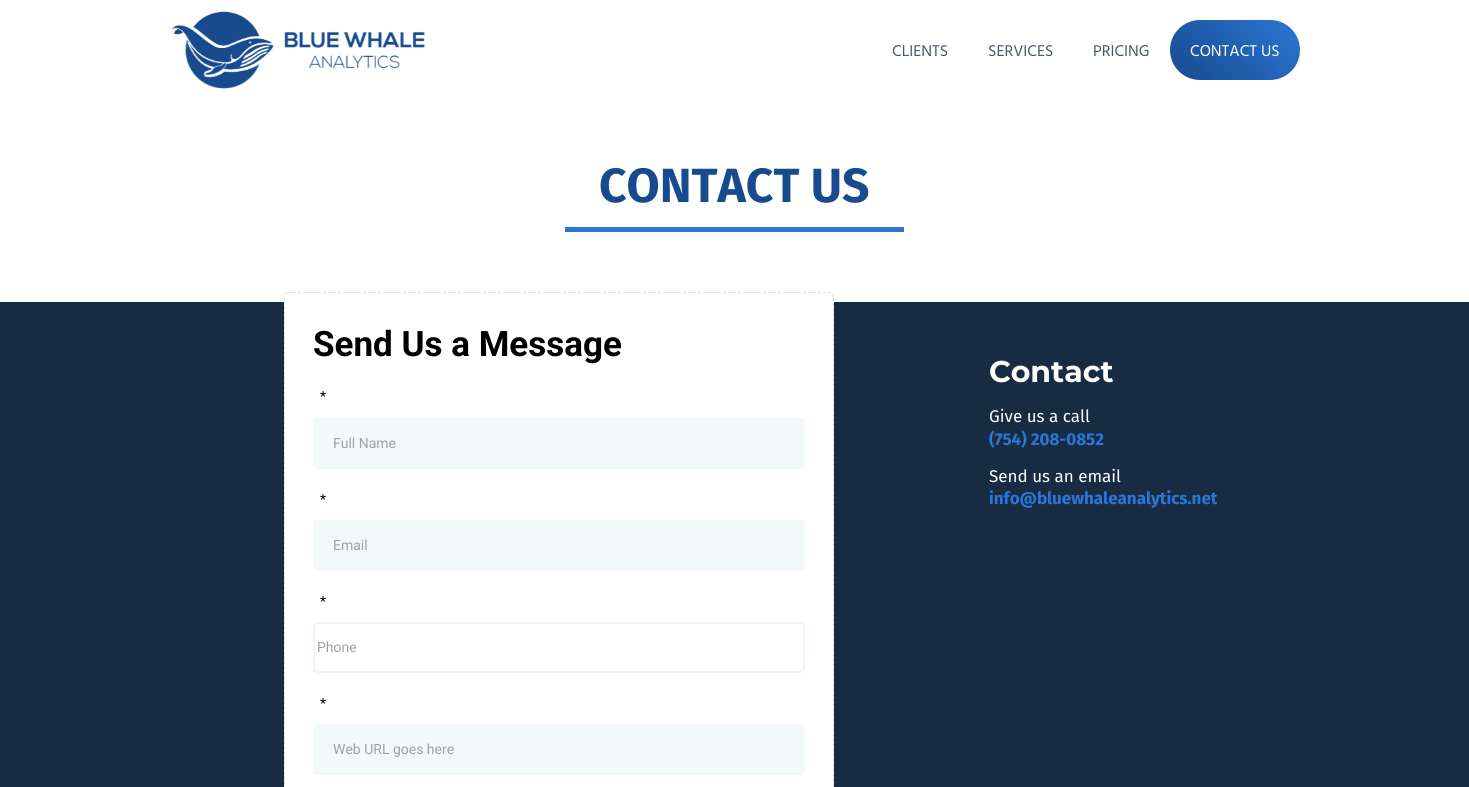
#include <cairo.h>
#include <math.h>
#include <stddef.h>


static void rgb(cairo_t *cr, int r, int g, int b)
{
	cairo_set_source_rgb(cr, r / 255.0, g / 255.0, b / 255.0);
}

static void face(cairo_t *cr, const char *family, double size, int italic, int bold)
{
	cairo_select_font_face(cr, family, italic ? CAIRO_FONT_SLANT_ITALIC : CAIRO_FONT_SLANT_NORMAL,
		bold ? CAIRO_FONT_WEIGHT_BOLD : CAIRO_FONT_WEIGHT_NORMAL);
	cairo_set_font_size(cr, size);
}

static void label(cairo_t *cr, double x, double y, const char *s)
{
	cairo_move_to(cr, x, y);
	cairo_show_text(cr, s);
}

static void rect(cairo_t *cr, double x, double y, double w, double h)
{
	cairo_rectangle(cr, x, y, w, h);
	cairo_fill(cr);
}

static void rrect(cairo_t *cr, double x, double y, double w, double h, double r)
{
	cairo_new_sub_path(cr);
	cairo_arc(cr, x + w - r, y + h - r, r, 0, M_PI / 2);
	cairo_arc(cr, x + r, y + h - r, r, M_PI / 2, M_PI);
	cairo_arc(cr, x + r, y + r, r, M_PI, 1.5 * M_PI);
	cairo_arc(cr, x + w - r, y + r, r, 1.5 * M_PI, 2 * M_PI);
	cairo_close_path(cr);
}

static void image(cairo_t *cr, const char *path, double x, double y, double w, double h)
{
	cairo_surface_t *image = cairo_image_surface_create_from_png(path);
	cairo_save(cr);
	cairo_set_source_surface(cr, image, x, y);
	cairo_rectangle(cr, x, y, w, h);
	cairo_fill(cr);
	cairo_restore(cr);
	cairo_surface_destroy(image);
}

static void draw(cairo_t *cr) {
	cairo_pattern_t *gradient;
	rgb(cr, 255, 255, 255);
	cairo_paint(cr);
	image(cr, "image0.png", 171, 11, 254, 78);
	face(cr, "Hind Vadodara", 16, 0, 0);
	rgb(cr, 72, 87, 104);
	label(cr, 892, 56, "CLIENTS");
	label(cr, 988, 56, "SERVICES");
	label(cr, 1093, 56, "PRICING");
	gradient = cairo_pattern_create_linear(1188, 98, 1283, 2.5);
	cairo_pattern_add_color_stop_rgba(gradient, 0, 0.09, 0.294, 0.557, 1);
	cairo_pattern_add_color_stop_rgba(gradient, 1, 0.169, 0.463, 0.839, 1);
	cairo_set_source(cr, gradient);
	cairo_pattern_destroy(gradient);
	rrect(cr, 1170, 20, 130, 60, 30);
	cairo_fill(cr);
	rgb(cr, 255, 255, 255);
	label(cr, 1190, 56, "CONTACT US");
	face(cr, "Fira Sans", 48, 0, 1);
	rgb(cr, 23, 75, 142);
	label(cr, 599, 202, "CONTACT US");
	rgb(cr, 43, 118, 214);
	rect(cr, 565, 227, 339, 5);
	rgb(cr, 23, 43, 67);
	rect(cr, 0, 302, 1469, 485);
	rgb(cr, 255, 255, 255);
	rrect(cr, 284, 292, 550, 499, 4);
	cairo_fill(cr);
	cairo_new_path(cr);
	cairo_move_to(cr, 288, 292.5);
	cairo_line_to(cr, 830, 292.5);
	cairo_curve_to(cr, 832, 292.5, 833.5, 294, 833.5, 296);
	cairo_line_to(cr, 833.5, 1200);
	cairo_curve_to(cr, 833.5, 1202, 832, 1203.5, 830, 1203.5);
	cairo_line_to(cr, 288, 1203.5);
	cairo_curve_to(cr, 286, 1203.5, 284.5, 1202, 284.5, 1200);
	cairo_line_to(cr, 284.5, 296);
	cairo_curve_to(cr, 284.5, 294, 286, 292.5, 288, 292.5);
	cairo_close_path(cr);
	rgb(cr, 205, 224, 236);
	cairo_set_line_width(cr, 1);
	cairo_set_dash(cr, (double[]){3, 2}, 2, 0);
	cairo_stroke(cr);
	face(cr, "Roboto", 35, 0, 1);
	rgb(cr, 0, 0, 0);
	label(cr, 313, 356, "Send Us a Message");
	face(cr, "Roboto", 14, 0, 0);
	label(cr, 320, 401, "*");
	rgb(cr, 243, 248, 251);
	rrect(cr, 313, 418, 492, 51, 4);
	cairo_fill(cr);
	rgb(cr, 159, 161, 163);
	label(cr, 333, 448, "Full Name");
	rgb(cr, 0, 0, 0);
	label(cr, 320, 504, "*");
	rgb(cr, 243, 248, 251);
	rrect(cr, 313, 520, 492, 51, 4);
	cairo_fill(cr);
	rgb(cr, 159, 161, 163);
	label(cr, 333, 550, "Email");
	rgb(cr, 0, 0, 0);
	label(cr, 320, 606, "*");
	rrect(cr, 314, 623, 490, 49, 4);
	rgb(cr, 241, 240, 255);
	cairo_set_line_width(cr, 2);
	cairo_set_dash(cr, NULL, 0, 0);
	cairo_stroke(cr);
	rgb(cr, 159, 161, 163);
	label(cr, 317, 652, "Phone");
	rgb(cr, 0, 0, 0);
	label(cr, 320, 708, "*");
	rgb(cr, 243, 248, 251);
	rrect(cr, 313, 724, 492, 51, 4);
	cairo_fill(cr);
	rgb(cr, 159, 161, 163);
	label(cr, 333, 754, "Web URL goes here");
	face(cr, "Montserrat", 30, 0, 1);
	rgb(cr, 255, 255, 255);
	label(cr, 989, 382, "Contact");
	face(cr, "Fira Sans", 17, 0, 0);
	label(cr, 989, 422, "Give us a call");
	face(cr, "Fira Sans", 17, 0, 1);
	rgb(cr, 43, 118, 214);
	label(cr, 989, 445, "(754) 208-0852");
	face(cr, "Fira Sans", 17, 0, 0);
	rgb(cr, 255, 255, 255);
	label(cr, 989, 482, "Send us an email");
	face(cr, "Fira Sans", 17, 0, 1);
	rgb(cr, 43, 118, 214);
	label(cr, 989, 504, "info@bluewhaleanalytics.net");
}

int main(void) {
	cairo_surface_t *surface = cairo_image_surface_create(CAIRO_FORMAT_RGB24, 1469, 787);
	cairo_t *cr = cairo_create(surface);
	cairo_font_options_t *options = cairo_font_options_create();
	cairo_font_options_set_hint_metrics(options, CAIRO_HINT_METRICS_OFF);
	cairo_font_options_set_hint_style(options, CAIRO_HINT_STYLE_NONE);
	cairo_set_font_options(cr, options);
	cairo_set_miter_limit(cr, 4);
	draw(cr);
	cairo_surface_write_to_png(surface, "render.png");
	cairo_font_options_destroy(options);
	cairo_destroy(cr);
	cairo_surface_destroy(surface);
	return 0;
}
